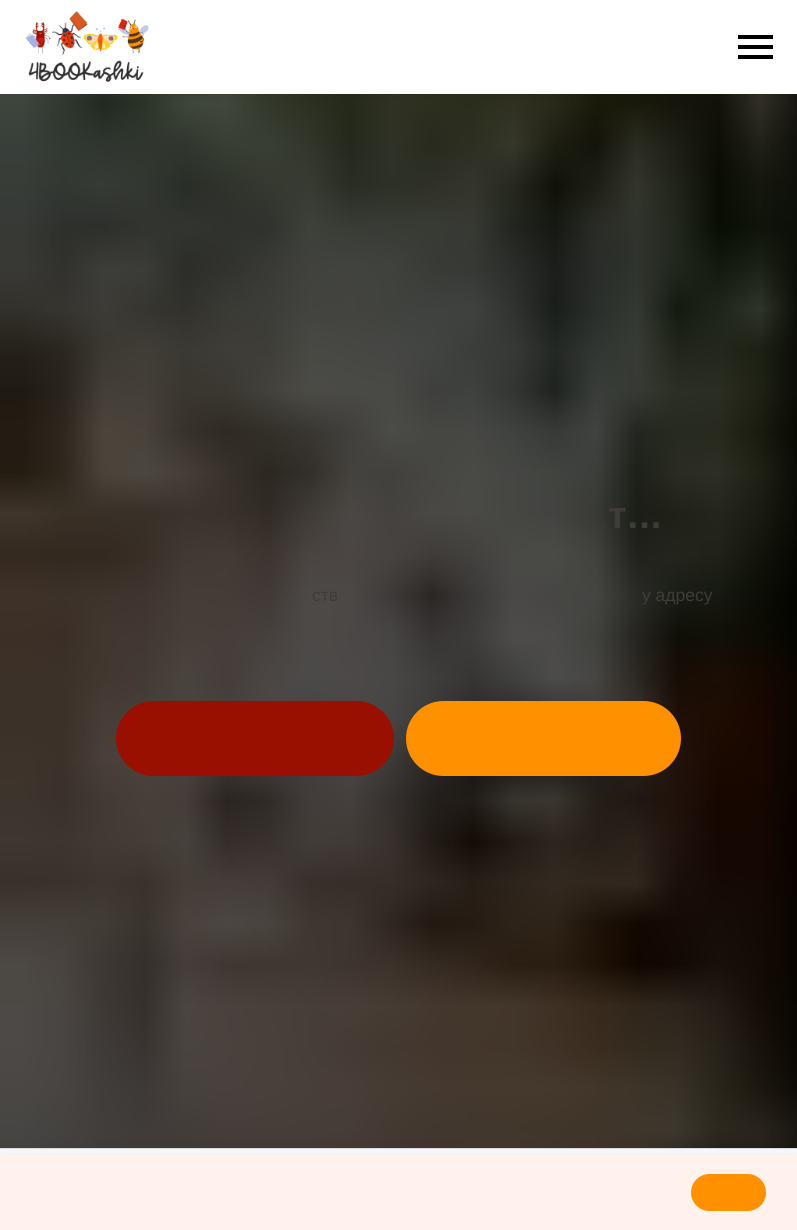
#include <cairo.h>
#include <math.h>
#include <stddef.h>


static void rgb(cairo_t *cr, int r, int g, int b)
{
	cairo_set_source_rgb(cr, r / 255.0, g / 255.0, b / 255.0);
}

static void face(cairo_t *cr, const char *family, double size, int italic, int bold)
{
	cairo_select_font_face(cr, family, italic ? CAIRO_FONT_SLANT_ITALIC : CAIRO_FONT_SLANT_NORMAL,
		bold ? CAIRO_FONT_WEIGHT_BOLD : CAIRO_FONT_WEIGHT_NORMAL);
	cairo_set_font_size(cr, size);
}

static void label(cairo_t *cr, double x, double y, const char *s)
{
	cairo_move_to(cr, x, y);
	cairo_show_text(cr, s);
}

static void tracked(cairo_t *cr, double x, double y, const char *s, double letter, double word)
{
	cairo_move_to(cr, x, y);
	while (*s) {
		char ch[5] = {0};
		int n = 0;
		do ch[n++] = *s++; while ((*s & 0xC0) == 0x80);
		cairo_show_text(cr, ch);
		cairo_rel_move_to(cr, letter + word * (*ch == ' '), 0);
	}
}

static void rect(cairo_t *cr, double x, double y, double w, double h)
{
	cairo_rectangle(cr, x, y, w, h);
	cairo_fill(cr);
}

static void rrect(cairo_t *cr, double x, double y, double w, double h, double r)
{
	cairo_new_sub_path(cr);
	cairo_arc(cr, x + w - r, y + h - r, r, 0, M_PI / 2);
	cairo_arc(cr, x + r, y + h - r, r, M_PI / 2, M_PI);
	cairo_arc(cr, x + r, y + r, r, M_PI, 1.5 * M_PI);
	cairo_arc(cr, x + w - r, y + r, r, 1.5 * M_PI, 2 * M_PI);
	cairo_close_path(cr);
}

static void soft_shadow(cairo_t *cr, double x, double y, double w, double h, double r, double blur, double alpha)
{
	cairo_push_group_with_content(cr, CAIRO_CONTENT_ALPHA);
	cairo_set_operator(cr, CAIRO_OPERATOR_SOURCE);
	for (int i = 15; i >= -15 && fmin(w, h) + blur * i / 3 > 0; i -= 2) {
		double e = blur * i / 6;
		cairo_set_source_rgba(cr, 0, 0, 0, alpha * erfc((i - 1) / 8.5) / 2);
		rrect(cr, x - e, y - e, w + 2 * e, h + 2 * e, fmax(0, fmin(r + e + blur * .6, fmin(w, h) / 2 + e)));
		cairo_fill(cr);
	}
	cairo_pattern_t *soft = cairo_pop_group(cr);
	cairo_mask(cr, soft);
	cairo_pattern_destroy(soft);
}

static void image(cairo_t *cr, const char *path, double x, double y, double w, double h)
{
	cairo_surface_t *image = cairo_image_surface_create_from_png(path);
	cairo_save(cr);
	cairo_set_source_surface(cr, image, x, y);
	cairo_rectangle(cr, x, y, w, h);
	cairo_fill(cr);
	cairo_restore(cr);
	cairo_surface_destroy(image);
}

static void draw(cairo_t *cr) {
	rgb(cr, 0, 0, 0);
	cairo_paint(cr);
	rgb(cr, 255, 255, 255);
	rect(cr, 0, 0, 797, 94);
	image(cr, "image0.png", 25, 10, 124, 72);
	rgb(cr, 0, 0, 0);
	rect(cr, 738, 35, 35, 4);
	rect(cr, 738, 45, 35, 4);
	rect(cr, 738, 55, 35, 4);
	rgb(cr, 255, 255, 255);
	rect(cr, 0, 1149, 797, 6);
	rgb(cr, 226, 226, 226);
	rect(cr, 0, 1148, 797, 1);
	image(cr, "image1.png", 0, 94, 797, 1054);
	rgb(cr, 0, 0, 0);
	soft_shadow(cr, 0, 1155, 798, 75, 0, 12.5, 0.1);
	rgb(cr, 255, 242, 236);
	rect(cr, 0, 1155, 797, 75);
	rgb(cr, 255, 144, 0);
	rrect(cr, 691, 1174, 75, 37, 18.5);
	cairo_fill(cr);
	face(cr, "Liberation Sans", 38, 0, 1);
	rgb(cr, 63, 60, 56);
	tracked(cr, 608, 528, "т...", 1, 0);
	face(cr, "Liberation Sans", 17.5, 0, 0);
	label(cr, 312, 601, "ств");
	label(cr, 642, 601, "у адресу");
	rgb(cr, 153, 16, 0);
	rrect(cr, 116, 701, 278, 75, 37.5);
	cairo_fill(cr);
	rgb(cr, 255, 144, 0);
	rrect(cr, 406, 701, 275, 75, 37.5);
	cairo_fill(cr);
}

int main(void) {
	cairo_surface_t *surface = cairo_image_surface_create(CAIRO_FORMAT_RGB24, 797, 1230);
	cairo_t *cr = cairo_create(surface);
	cairo_font_options_t *options = cairo_font_options_create();
	cairo_font_options_set_hint_metrics(options, CAIRO_HINT_METRICS_OFF);
	cairo_font_options_set_hint_style(options, CAIRO_HINT_STYLE_NONE);
	cairo_set_font_options(cr, options);
	cairo_set_miter_limit(cr, 4);
	draw(cr);
	cairo_surface_write_to_png(surface, "render.png");
	cairo_font_options_destroy(options);
	cairo_destroy(cr);
	cairo_surface_destroy(surface);
	return 0;
}
